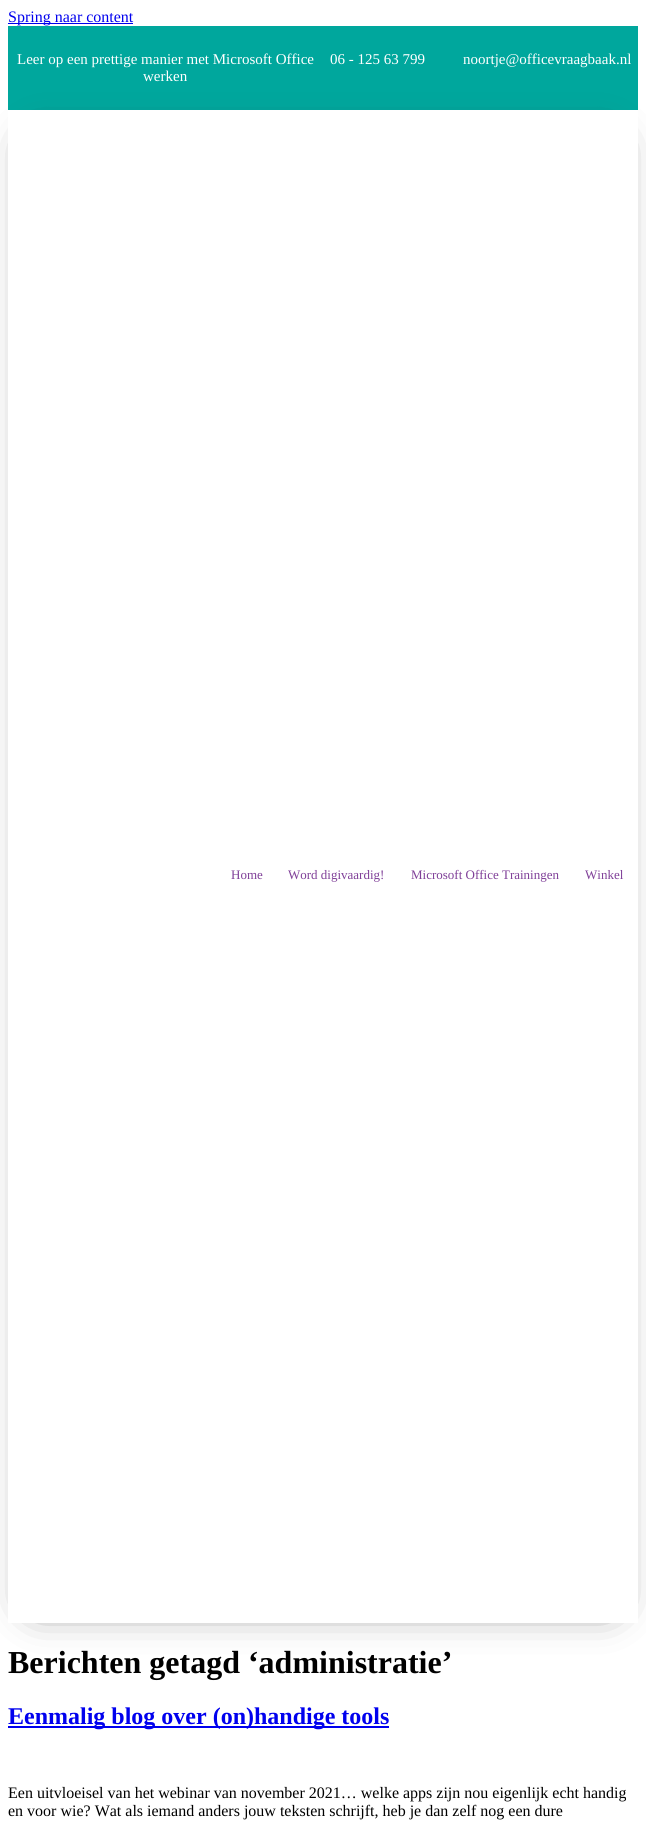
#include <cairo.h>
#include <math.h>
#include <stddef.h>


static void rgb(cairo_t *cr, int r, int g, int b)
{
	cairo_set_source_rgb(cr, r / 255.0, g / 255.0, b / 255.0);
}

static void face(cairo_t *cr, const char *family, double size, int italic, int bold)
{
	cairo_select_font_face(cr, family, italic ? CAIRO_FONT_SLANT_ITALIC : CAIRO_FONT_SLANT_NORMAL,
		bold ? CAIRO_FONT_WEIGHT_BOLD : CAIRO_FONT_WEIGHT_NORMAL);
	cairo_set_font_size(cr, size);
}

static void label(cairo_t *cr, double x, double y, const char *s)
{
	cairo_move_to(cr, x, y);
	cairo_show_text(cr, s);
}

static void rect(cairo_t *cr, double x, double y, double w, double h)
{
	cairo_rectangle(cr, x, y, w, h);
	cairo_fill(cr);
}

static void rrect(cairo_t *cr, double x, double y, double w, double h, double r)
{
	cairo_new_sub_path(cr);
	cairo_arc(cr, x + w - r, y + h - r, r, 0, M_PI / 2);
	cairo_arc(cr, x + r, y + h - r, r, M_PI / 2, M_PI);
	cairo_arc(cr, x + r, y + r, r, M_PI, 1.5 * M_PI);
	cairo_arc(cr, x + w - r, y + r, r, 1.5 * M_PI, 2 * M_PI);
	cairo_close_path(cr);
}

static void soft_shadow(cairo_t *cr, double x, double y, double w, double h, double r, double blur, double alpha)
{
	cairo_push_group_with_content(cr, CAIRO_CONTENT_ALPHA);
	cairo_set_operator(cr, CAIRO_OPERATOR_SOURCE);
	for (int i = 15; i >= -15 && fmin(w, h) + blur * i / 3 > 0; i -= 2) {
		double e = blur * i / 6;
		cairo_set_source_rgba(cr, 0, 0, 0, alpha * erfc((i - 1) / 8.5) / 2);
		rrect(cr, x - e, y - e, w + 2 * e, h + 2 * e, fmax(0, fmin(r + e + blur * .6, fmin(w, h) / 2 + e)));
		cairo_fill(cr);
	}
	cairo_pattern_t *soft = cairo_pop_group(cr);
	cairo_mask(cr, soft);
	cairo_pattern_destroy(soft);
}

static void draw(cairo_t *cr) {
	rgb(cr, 255, 255, 255);
	cairo_paint(cr);
	rgb(cr, 0, 0, 238);
	rect(cr, 8, 23, 125, 1);
	face(cr, "Liberation Serif", 16, 0, 0);
	label(cr, 8, 22, "Spring naar content");
	rgb(cr, 0, 167, 157);
	rect(cr, 8, 26, 630, 84);
	face(cr, "Liberation Serif", 15, 0, 0);
	rgb(cr, 255, 255, 255);
	label(cr, 17, 64, "Leer op een prettige manier met Microsoft Office");
	label(cr, 143, 81, "werken");
	label(cr, 330, 64, "06 - 125 63 799");
	label(cr, 463, 64, "noortje@officevraagbaak.nl");
	cairo_save(cr);
	cairo_set_fill_rule(cr, CAIRO_FILL_RULE_EVEN_ODD);
	cairo_new_path(cr);
	cairo_move_to(cr, 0, 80);
	cairo_line_to(cr, 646, 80);
	cairo_line_to(cr, 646, 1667);
	cairo_line_to(cr, 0, 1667);
	cairo_close_path(cr);
	cairo_move_to(cr, 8, 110);
	cairo_line_to(cr, 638, 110);
	cairo_line_to(cr, 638, 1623);
	cairo_line_to(cr, 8, 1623);
	cairo_close_path(cr);
	cairo_clip(cr);
	rgb(cr, 51, 51, 51);
	soft_shadow(cr, 37, 146, 572, 1455, 0, 21.5, 1);
	cairo_restore(cr);
	face(cr, "Liberation Serif", 13, 0, 0);
	rgb(cr, 127, 63, 152);
	label(cr, 231, 879, "Home");
	label(cr, 288, 879, "Word digivaardig!");
	label(cr, 411, 879, "Microsoft Office Trainingen");
	label(cr, 585, 879, "Winkel");
	face(cr, "Liberation Serif", 32, 0, 1);
	rgb(cr, 0, 0, 0);
	label(cr, 8, 1673, "Berichten getagd ‘administratie’");
	rgb(cr, 0, 0, 238);
	rect(cr, 8, 1726, 381, 2);
	face(cr, "Liberation Serif", 24, 0, 1);
	label(cr, 8, 1724, "Eenmalig blog over (on)handige tools");
	face(cr, "Liberation Serif", 16, 0, 0);
	rgb(cr, 0, 0, 0);
	label(cr, 8, 1798, "Een uitvloeisel van het webinar van november 2021… welke apps zijn nou eigenlijk echt handig");
	label(cr, 8, 1816, "en voor wie? Wat als iemand anders jouw teksten schrijft, heb je dan zelf nog een dure");
}

int main(void) {
	cairo_surface_t *surface = cairo_image_surface_create(CAIRO_FORMAT_RGB24, 646, 1826);
	cairo_t *cr = cairo_create(surface);
	cairo_font_options_t *options = cairo_font_options_create();
	cairo_font_options_set_hint_metrics(options, CAIRO_HINT_METRICS_OFF);
	cairo_font_options_set_hint_style(options, CAIRO_HINT_STYLE_NONE);
	cairo_set_font_options(cr, options);
	cairo_set_miter_limit(cr, 4);
	draw(cr);
	cairo_surface_write_to_png(surface, "render.png");
	cairo_font_options_destroy(options);
	cairo_destroy(cr);
	cairo_surface_destroy(surface);
	return 0;
}
